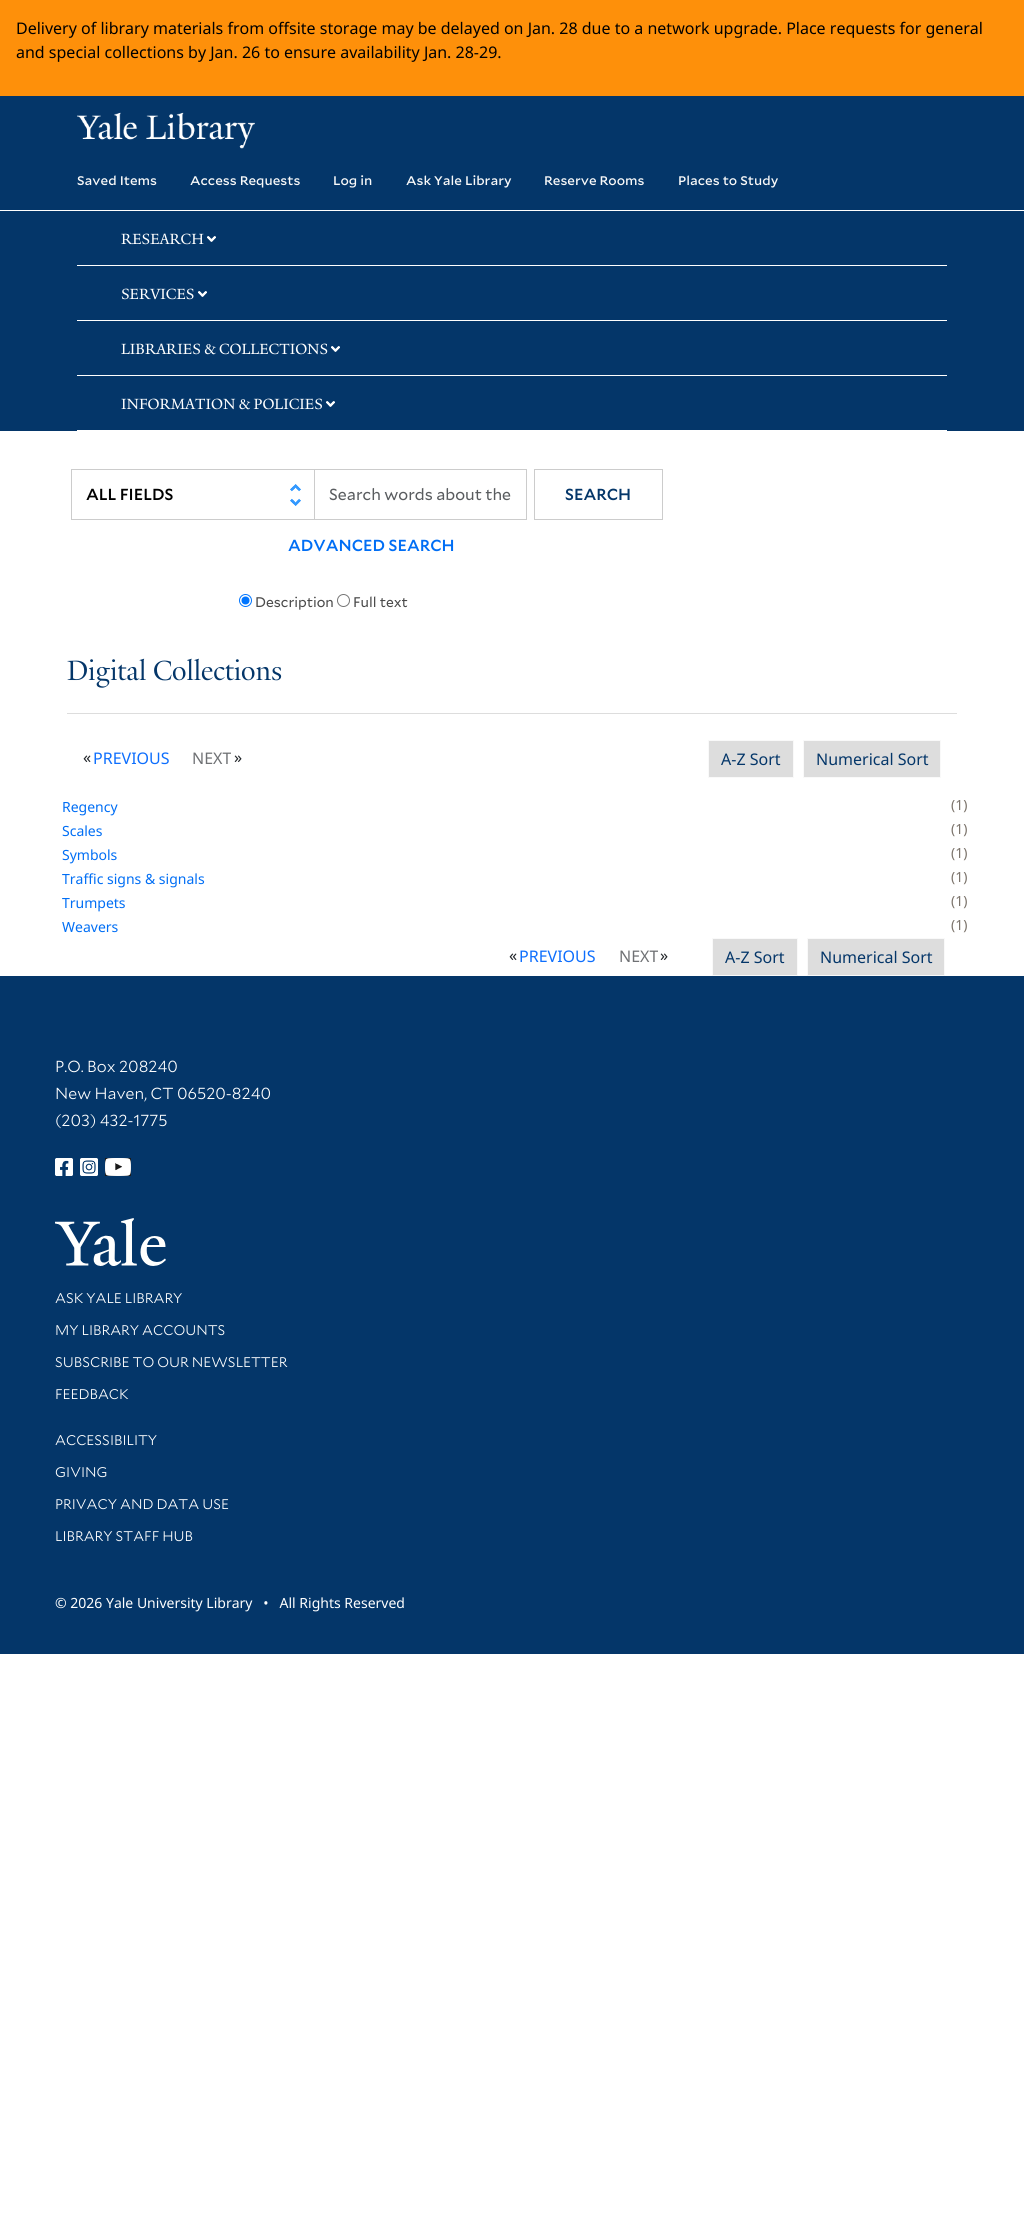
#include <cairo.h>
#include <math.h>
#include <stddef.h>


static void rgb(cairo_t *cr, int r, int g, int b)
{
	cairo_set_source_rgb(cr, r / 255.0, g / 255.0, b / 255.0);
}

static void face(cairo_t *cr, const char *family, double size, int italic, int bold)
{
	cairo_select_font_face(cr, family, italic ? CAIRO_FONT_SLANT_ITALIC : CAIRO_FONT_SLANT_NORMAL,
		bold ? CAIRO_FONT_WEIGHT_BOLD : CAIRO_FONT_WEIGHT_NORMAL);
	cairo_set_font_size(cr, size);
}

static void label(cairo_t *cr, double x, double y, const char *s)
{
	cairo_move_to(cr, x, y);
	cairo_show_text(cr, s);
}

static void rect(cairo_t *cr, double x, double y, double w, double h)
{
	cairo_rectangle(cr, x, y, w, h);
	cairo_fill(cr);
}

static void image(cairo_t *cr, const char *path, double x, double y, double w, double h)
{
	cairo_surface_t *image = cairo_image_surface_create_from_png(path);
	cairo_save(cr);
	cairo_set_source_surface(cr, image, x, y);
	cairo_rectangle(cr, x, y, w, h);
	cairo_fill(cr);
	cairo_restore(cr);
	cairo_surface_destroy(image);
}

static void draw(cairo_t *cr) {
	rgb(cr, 255, 255, 255);
	cairo_paint(cr);
	rgb(cr, 254, 144, 10);
	rect(cr, 0, 0, 1024, 96);
	face(cr, "Noto Sans", 16, 0, 0);
	rgb(cr, 0, 0, 0);
	label(cr, 16, 34, "Delivery of library materials from offsite storage may be delayed on Jan. 28 due to a network upgrade. Place requests for general");
	label(cr, 16, 58, "and special collections by Jan. 26 to ensure availability Jan. 28-29.");
	rgb(cr, 4, 54, 105);
	rect(cr, 0, 96, 1024, 114);
	image(cr, "image0.png", 77, 112, 178, 37);
	face(cr, "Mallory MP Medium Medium", 12, 0, 0);
	rgb(cr, 249, 249, 249);
	label(cr, 77, 185, "Saved Items");
	label(cr, 190, 185, "Access Requests");
	label(cr, 333, 185, "Log in");
	label(cr, 406, 185, "Ask Yale Library");
	label(cr, 544, 185, "Reserve Rooms");
	label(cr, 678, 185, "Places to Study");
	rgb(cr, 4, 54, 105);
	rect(cr, 0, 211, 1024, 220);
	rgb(cr, 255, 255, 255);
	rect(cr, 77, 265, 870, 1);
	face(cr, "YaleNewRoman", 16, 0, 0);
	label(cr, 121, 244, "RESEARCH");
	image(cr, "image1.png", 207, 236, 9, 6);
	rect(cr, 77, 320, 870, 1);
	label(cr, 121, 299, "SERVICES");
	image(cr, "image1.png", 198, 291, 9, 6);
	rect(cr, 77, 375, 870, 1);
	label(cr, 121, 354, "LIBRARIES & COLLECTIONS");
	image(cr, "image1.png", 331, 346, 9, 6);
	rect(cr, 77, 430, 870, 1);
	label(cr, 121, 409, "INFORMATION & POLICIES");
	image(cr, "image1.png", 326, 401, 9, 6);
	image(cr, "image2.png", 290, 484, 11, 22);
	cairo_rectangle(cr, 71.5, 469.5, 244, 50);
	rgb(cr, 204, 204, 204);
	cairo_set_line_width(cr, 1);
	cairo_stroke(cr);
	face(cr, "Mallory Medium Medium", 16, 0, 0);
	rgb(cr, 0, 0, 0);
	label(cr, 86, 500, "ALL FIELDS");
	rgb(cr, 255, 255, 255);
	rect(cr, 315, 470, 1, 49);
	cairo_rectangle(cr, 314.5, 469.5, 212, 50);
	rgb(cr, 204, 204, 204);
	cairo_stroke(cr);
	face(cr, "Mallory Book", 16, 0, 0);
	rgb(cr, 89, 92, 95);
	label(cr, 329, 500, "Search words about the");
	cairo_rectangle(cr, 534.5, 469.5, 128, 50);
	rgb(cr, 204, 204, 204);
	cairo_stroke(cr);
	face(cr, "Mallory Medium Medium", 16, 0, 0);
	rgb(cr, 4, 54, 105);
	label(cr, 565, 500, "SEARCH");
	rgb(cr, 0, 110, 245);
	label(cr, 288, 551, "ADVANCED SEARCH");
	cairo_new_path(cr);
	cairo_arc(cr, 245.5, 600.5, 6, 0, 2 * M_PI);
	rgb(cr, 0, 117, 255);
	cairo_stroke(cr);
	cairo_arc(cr, 245.5, 600.5, 4, 0, 2 * M_PI);
	cairo_fill(cr);
	face(cr, "Mallory Book", 14, 0, 0);
	rgb(cr, 74, 74, 74);
	label(cr, 255, 607, "Description");
	cairo_new_path(cr);
	cairo_arc(cr, 343.5, 600.5, 6, 0, 2 * M_PI);
	rgb(cr, 118, 118, 118);
	cairo_stroke(cr);
	rgb(cr, 74, 74, 74);
	label(cr, 353, 607, "Full text");
	rgb(cr, 221, 221, 221);
	rect(cr, 67, 713, 890, 1);
	face(cr, "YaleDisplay", 30, 0, 0);
	rgb(cr, 4, 54, 105);
	label(cr, 67, 680, "Digital Collections");
	face(cr, "Noto Sans", 16, 0, 0);
	rgb(cr, 33, 37, 41);
	label(cr, 83, 763, "«");
	rgb(cr, 13, 110, 253);
	label(cr, 93, 764, "PREVIOUS");
	rgb(cr, 111, 113, 116);
	label(cr, 192, 764, "NEXT");
	rgb(cr, 33, 37, 41);
	label(cr, 234, 763, "»");
	rgb(cr, 221, 221, 221);
	cairo_rectangle(cr, 708.5, 740.5, 85, 37);
	cairo_fill_preserve(cr);
	rgb(cr, 249, 249, 249);
	cairo_stroke(cr);
	rgb(cr, 4, 54, 105);
	label(cr, 721, 765, "A-Z Sort");
	rgb(cr, 221, 221, 221);
	cairo_rectangle(cr, 803.5, 740.5, 137, 37);
	cairo_fill_preserve(cr);
	rgb(cr, 249, 249, 249);
	cairo_stroke(cr);
	rgb(cr, 4, 54, 105);
	label(cr, 816, 765, "Numerical Sort");
	face(cr, "Noto Sans", 14, 0, 0);
	rgb(cr, 0, 110, 245);
	label(cr, 62, 812, "Regency");
	rgb(cr, 123, 115, 107);
	label(cr, 951, 810, "(1)");
	rgb(cr, 0, 110, 245);
	label(cr, 62, 836, "Scales");
	rgb(cr, 123, 115, 107);
	label(cr, 951, 834, "(1)");
	rgb(cr, 0, 110, 245);
	label(cr, 62, 860, "Symbols");
	rgb(cr, 123, 115, 107);
	label(cr, 951, 858, "(1)");
	rgb(cr, 0, 110, 245);
	label(cr, 62, 884, "Traffic signs & signals");
	rgb(cr, 123, 115, 107);
	label(cr, 951, 882, "(1)");
	rgb(cr, 0, 110, 245);
	label(cr, 62, 908, "Trumpets");
	rgb(cr, 123, 115, 107);
	label(cr, 951, 906, "(1)");
	rgb(cr, 0, 110, 245);
	label(cr, 62, 932, "Weavers");
	rgb(cr, 123, 115, 107);
	label(cr, 951, 930, "(1)");
	face(cr, "Noto Sans", 16, 0, 0);
	rgb(cr, 33, 37, 41);
	label(cr, 509, 961, "«");
	rgb(cr, 13, 110, 253);
	label(cr, 519, 962, "PREVIOUS");
	rgb(cr, 111, 113, 116);
	label(cr, 619, 962, "NEXT");
	rgb(cr, 33, 37, 41);
	label(cr, 660, 961, "»");
	rgb(cr, 221, 221, 221);
	cairo_rectangle(cr, 712.5, 938.5, 85, 37);
	cairo_fill_preserve(cr);
	rgb(cr, 249, 249, 249);
	cairo_stroke(cr);
	rgb(cr, 4, 54, 105);
	label(cr, 725, 963, "A-Z Sort");
	rgb(cr, 221, 221, 221);
	cairo_rectangle(cr, 807.5, 938.5, 137, 37);
	cairo_fill_preserve(cr);
	rgb(cr, 249, 249, 249);
	cairo_stroke(cr);
	rgb(cr, 4, 54, 105);
	label(cr, 820, 963, "Numerical Sort");
	rect(cr, 0, 976, 1024, 678);
	face(cr, "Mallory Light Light", 16, 0, 0);
	rgb(cr, 255, 255, 255);
	label(cr, 55, 1072, "P.O. Box 208240");
	label(cr, 55, 1099, "New Haven, CT 06520-8240");
	label(cr, 55, 1126, "(203) 432-1775");
	image(cr, "image3.png", 55, 1158, 18, 18);
	image(cr, "image4.png", 80, 1158, 18, 18);
	image(cr, "image5.png", 105, 1158, 26, 18);
	image(cr, "image6.png", 55, 1218, 111, 48);
	face(cr, "Mallory Light Light", 14, 0, 0);
	label(cr, 55, 1303, "ASK YALE LIBRARY");
	label(cr, 55, 1335, "MY LIBRARY ACCOUNTS");
	label(cr, 55, 1367, "SUBSCRIBE TO OUR NEWSLETTER");
	label(cr, 55, 1399, "FEEDBACK");
	label(cr, 55, 1445, "ACCESSIBILITY");
	label(cr, 55, 1477, "GIVING");
	label(cr, 55, 1509, "PRIVACY AND DATA USE");
	label(cr, 55, 1541, "LIBRARY STAFF HUB");
	face(cr, "Noto Sans", 14, 0, 0);
	label(cr, 55, 1608, "© 2026 Yale University Library   •   All Rights Reserved");
}

int main(void) {
	cairo_surface_t *surface = cairo_image_surface_create(CAIRO_FORMAT_RGB24, 1024, 2217);
	cairo_t *cr = cairo_create(surface);
	cairo_font_options_t *options = cairo_font_options_create();
	cairo_font_options_set_hint_metrics(options, CAIRO_HINT_METRICS_OFF);
	cairo_font_options_set_hint_style(options, CAIRO_HINT_STYLE_NONE);
	cairo_set_font_options(cr, options);
	cairo_set_miter_limit(cr, 4);
	draw(cr);
	cairo_surface_write_to_png(surface, "render.png");
	cairo_font_options_destroy(options);
	cairo_destroy(cr);
	cairo_surface_destroy(surface);
	return 0;
}
